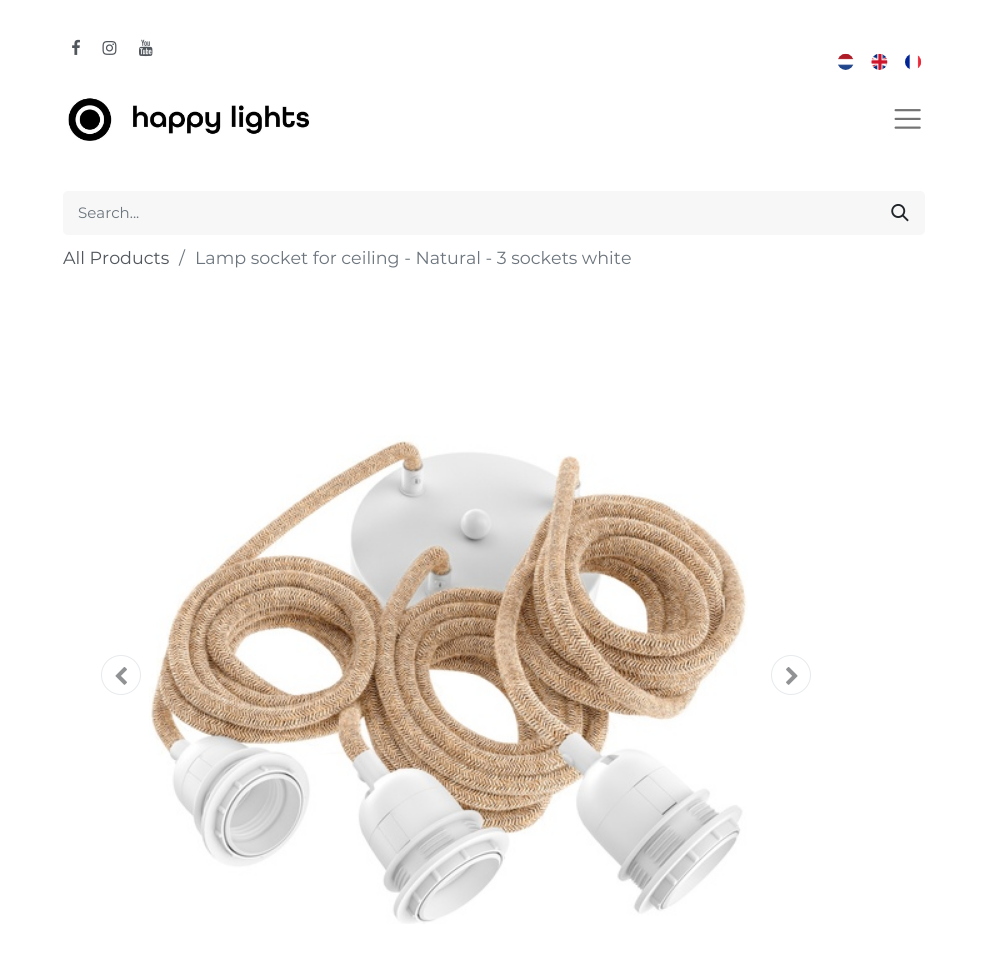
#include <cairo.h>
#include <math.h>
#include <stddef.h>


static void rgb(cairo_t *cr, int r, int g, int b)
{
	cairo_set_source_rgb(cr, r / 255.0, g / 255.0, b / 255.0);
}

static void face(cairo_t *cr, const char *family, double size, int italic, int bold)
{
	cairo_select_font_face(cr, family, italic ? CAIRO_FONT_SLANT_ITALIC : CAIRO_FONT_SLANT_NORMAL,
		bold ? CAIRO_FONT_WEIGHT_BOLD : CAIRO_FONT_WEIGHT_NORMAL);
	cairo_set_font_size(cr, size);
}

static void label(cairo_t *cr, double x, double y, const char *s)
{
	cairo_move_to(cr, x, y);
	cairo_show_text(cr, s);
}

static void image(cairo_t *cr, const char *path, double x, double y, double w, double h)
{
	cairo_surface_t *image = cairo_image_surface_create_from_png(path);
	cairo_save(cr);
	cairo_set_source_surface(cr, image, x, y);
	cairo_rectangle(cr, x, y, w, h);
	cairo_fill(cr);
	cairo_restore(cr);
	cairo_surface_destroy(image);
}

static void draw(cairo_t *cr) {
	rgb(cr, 255, 255, 255);
	cairo_paint(cr);
	image(cr, "image0.png", 72, 39, 8, 16);
	image(cr, "image1.png", 102, 41, 15, 14);
	image(cr, "image2.png", 139, 39, 14, 18);
	image(cr, "image3.png", 838, 53, 16, 17);
	image(cr, "image4.png", 871, 53, 17, 17);
	image(cr, "image5.png", 905, 54, 17, 16);
	image(cr, "image6.png", 68, 98, 242, 43);
	image(cr, "image7.png", 894, 109, 27, 20);
	rgb(cr, 247, 247, 247);
	cairo_new_path(cr);
	cairo_move_to(cr, 68, 191);
	cairo_line_to(cr, 876, 191);
	cairo_line_to(cr, 876, 235);
	cairo_line_to(cr, 68, 235);
	cairo_curve_to(cr, 65, 235, 63, 233, 63, 230);
	cairo_line_to(cr, 63, 196);
	cairo_curve_to(cr, 63, 193, 65, 191, 68, 191);
	cairo_close_path(cr);
	cairo_fill(cr);
	face(cr, "Montserrat", 15, 0, 0);
	rgb(cr, 108, 117, 125);
	label(cr, 78, 218, "Search...");
	rgb(cr, 247, 247, 247);
	cairo_new_path(cr);
	cairo_move_to(cr, 875, 191);
	cairo_line_to(cr, 920, 191);
	cairo_curve_to(cr, 923, 191, 925, 193, 925, 196);
	cairo_line_to(cr, 925, 230);
	cairo_curve_to(cr, 925, 233, 923, 235, 920, 235);
	cairo_line_to(cr, 875, 235);
	cairo_close_path(cr);
	cairo_fill(cr);
	image(cr, "image8.png", 891, 204, 18, 18);
	face(cr, "Montserrat", 17.5, 0, 0);
	rgb(cr, 80, 86, 92);
	label(cr, 63, 264, "All Products");
	rgb(cr, 108, 117, 125);
	label(cr, 179, 264, "/");
	label(cr, 195, 264, "Lamp socket for ceiling - Natural - 3 sockets white");
	cairo_new_path(cr);
	cairo_arc(cr, 121, 675, 19.5, 0, 2 * M_PI);
	rgb(cr, 231, 234, 237);
	cairo_set_line_width(cr, 1);
	cairo_stroke(cr);
	image(cr, "image9.png", 115, 667, 12, 18);
	image(cr, "image10.png", 149, 435, 599, 489);
	cairo_arc(cr, 791, 675, 19.5, 0, 2 * M_PI);
	cairo_stroke(cr);
	image(cr, "image11.png", 786, 667, 12, 18);
}

int main(void) {
	cairo_surface_t *surface = cairo_image_surface_create(CAIRO_FORMAT_RGB24, 987, 970);
	cairo_t *cr = cairo_create(surface);
	cairo_font_options_t *options = cairo_font_options_create();
	cairo_font_options_set_hint_metrics(options, CAIRO_HINT_METRICS_OFF);
	cairo_font_options_set_hint_style(options, CAIRO_HINT_STYLE_NONE);
	cairo_set_font_options(cr, options);
	cairo_set_miter_limit(cr, 4);
	draw(cr);
	cairo_surface_write_to_png(surface, "render.png");
	cairo_font_options_destroy(options);
	cairo_destroy(cr);
	cairo_surface_destroy(surface);
	return 0;
}
